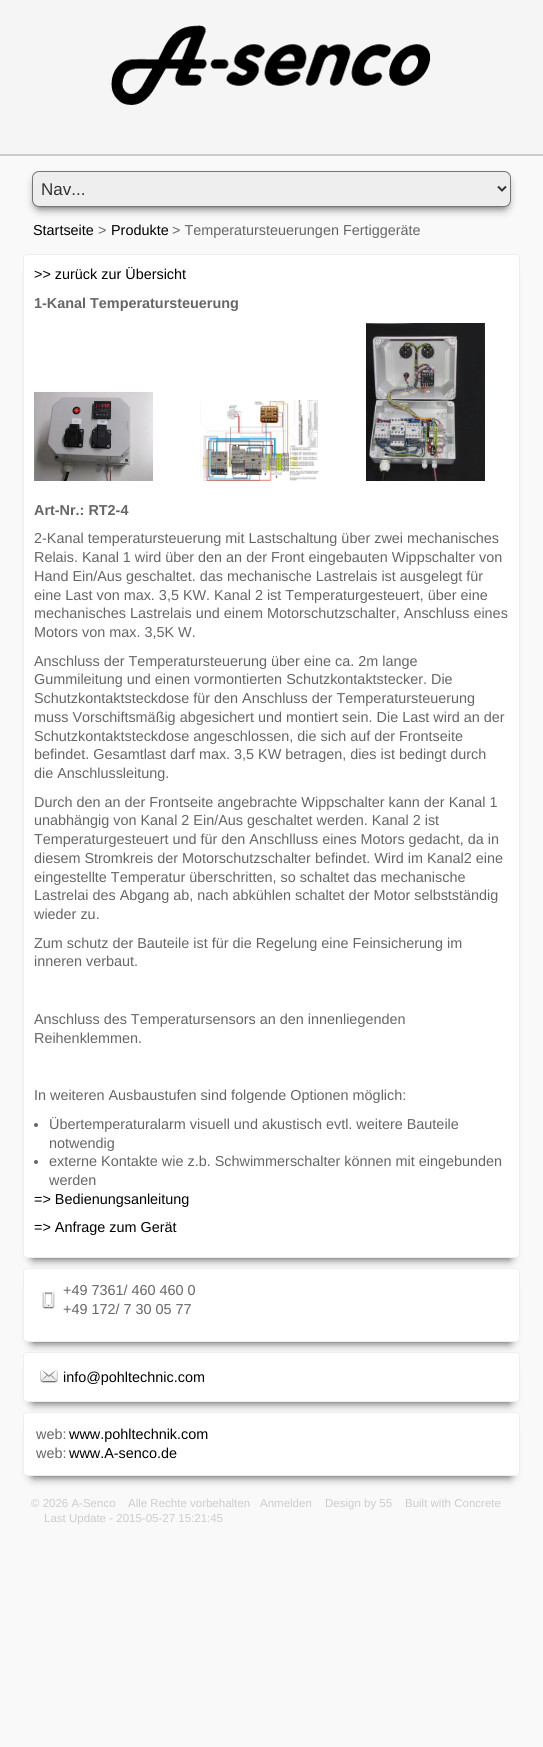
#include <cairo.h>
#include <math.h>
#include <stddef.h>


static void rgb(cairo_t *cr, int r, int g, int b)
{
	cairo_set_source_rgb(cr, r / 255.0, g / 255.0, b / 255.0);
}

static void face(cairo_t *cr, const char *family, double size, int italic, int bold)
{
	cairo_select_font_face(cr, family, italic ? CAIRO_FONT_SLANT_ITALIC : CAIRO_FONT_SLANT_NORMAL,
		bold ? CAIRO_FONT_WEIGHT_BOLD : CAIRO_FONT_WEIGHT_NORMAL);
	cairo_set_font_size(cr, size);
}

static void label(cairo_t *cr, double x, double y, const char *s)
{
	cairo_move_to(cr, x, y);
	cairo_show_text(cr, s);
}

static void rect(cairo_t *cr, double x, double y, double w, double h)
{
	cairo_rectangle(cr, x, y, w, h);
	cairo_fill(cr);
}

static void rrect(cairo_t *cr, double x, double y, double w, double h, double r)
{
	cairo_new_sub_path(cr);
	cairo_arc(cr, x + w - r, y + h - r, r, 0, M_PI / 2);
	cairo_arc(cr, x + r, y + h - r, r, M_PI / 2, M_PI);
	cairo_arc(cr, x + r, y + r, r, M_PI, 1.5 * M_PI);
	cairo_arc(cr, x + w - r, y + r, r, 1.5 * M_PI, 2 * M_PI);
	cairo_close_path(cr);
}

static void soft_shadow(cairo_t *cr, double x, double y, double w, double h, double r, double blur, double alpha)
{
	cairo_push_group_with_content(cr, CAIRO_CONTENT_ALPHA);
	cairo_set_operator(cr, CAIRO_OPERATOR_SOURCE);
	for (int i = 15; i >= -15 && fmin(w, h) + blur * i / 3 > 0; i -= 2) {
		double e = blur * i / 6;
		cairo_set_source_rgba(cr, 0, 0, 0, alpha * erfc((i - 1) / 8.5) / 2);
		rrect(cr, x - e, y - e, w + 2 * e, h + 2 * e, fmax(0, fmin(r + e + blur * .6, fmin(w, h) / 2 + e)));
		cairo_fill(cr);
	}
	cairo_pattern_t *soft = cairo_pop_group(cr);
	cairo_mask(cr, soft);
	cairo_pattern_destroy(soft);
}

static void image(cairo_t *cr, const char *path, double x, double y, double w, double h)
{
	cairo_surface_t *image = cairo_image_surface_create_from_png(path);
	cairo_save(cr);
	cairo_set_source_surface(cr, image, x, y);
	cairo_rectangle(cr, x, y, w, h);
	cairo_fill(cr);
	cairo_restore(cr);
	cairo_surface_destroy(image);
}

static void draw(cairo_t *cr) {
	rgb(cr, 249, 249, 249);
	cairo_paint(cr);
	rgb(cr, 245, 245, 245);
	rect(cr, 0, 0, 543, 154);
	image(cr, "image0.png", 111, 25, 320, 80);
	rgb(cr, 204, 204, 204);
	rect(cr, 0, 154, 543, 2);
	rgb(cr, 51, 51, 51);
	soft_shadow(cr, 37, 181, 469, 26, 2, 5, 1);
	rgb(cr, 238, 238, 238);
	rrect(cr, 32.5, 171.5, 478, 35, 6.5);
	cairo_fill_preserve(cr);
	rgb(cr, 118, 118, 118);
	cairo_set_line_width(cr, 1);
	cairo_stroke(cr);
	cairo_new_path(cr);
	cairo_move_to(cr, 498, 186.5);
	cairo_line_to(cr, 502, 190.5);
	cairo_line_to(cr, 506, 186.5);
	rgb(cr, 51, 51, 51);
	cairo_set_line_width(cr, 2);
	cairo_stroke(cr);
	face(cr, "Liberation Sans", 17, 0, 0);
	label(cr, 41, 195, "Nav...");
	face(cr, "Liberation Sans", 14.4, 0, 0);
	rgb(cr, 0, 0, 0);
	label(cr, 33, 235, "Startseite");
	rgb(cr, 102, 102, 102);
	label(cr, 98, 235, ">");
	rgb(cr, 0, 0, 0);
	label(cr, 111, 235, "Produkte");
	rgb(cr, 102, 102, 102);
	label(cr, 172, 235, "> Temperatursteuerungen Fertiggeräte");
	rgb(cr, 51, 51, 51);
	soft_shadow(cr, 33, 274, 477, 984, 0, 5, 1);
	rgb(cr, 255, 255, 255);
	rrect(cr, 23.5, 254.5, 496, 1003, 3.5);
	cairo_fill_preserve(cr);
	rgb(cr, 238, 238, 238);
	cairo_set_line_width(cr, 1);
	cairo_stroke(cr);
	rgb(cr, 0, 0, 0);
	label(cr, 34, 279, ">> zurück zur Übersicht");
	face(cr, "Liberation Sans", 14.4, 0, 1);
	rgb(cr, 102, 102, 102);
	label(cr, 34, 308, "1-Kanal Temperatursteuerung");
	image(cr, "image1.png", 34, 392, 119, 89);
	image(cr, "image2.png", 200, 400, 119, 81);
	image(cr, "image3.png", 366, 323, 119, 158);
	label(cr, 34, 515, "Art-Nr.: RT2-4");
	face(cr, "Liberation Sans", 14.4, 0, 0);
	label(cr, 34, 543, "2-Kanal temperatursteuerung mit Lastschaltung über zwei mechanisches");
	label(cr, 34, 562, "Relais. Kanal 1 wird über den an der Front eingebauten Wippschalter von");
	label(cr, 34, 581, "Hand Ein/Aus geschaltet. das mechanische Lastrelais ist ausgelegt für");
	label(cr, 34, 600, "eine Last von max. 3,5 KW. Kanal 2 ist Temperaturgesteuert, über eine");
	label(cr, 34, 618, "mechanisches Lastrelais und einem Motorschutzschalter, Anschluss eines");
	label(cr, 34, 637, "Motors von max. 3,5K W.");
	label(cr, 34, 666, "Anschluss der Temperatursteuerung über eine ca. 2m lange");
	label(cr, 34, 684, "Gummileitung und einen vormontierten Schutzkontaktstecker. Die");
	label(cr, 34, 703, "Schutzkontaktsteckdose für den Anschluss der Temperatursteuerung");
	label(cr, 34, 722, "muss Vorschiftsmäßig abgesichert und montiert sein. Die Last wird an der");
	label(cr, 34, 741, "Schutzkontaktsteckdose angeschlossen, die sich auf der Frontseite");
	label(cr, 34, 759, "befindet. Gesamtlast darf max. 3,5 KW betragen, dies ist bedingt durch");
	label(cr, 34, 778, "die Anschlussleitung.");
	label(cr, 34, 807, "Durch den an der Frontseite angebrachte Wippschalter kann der Kanal 1");
	label(cr, 34, 825, "unabhängig von Kanal 2 Ein/Aus geschaltet werden. Kanal 2 ist");
	label(cr, 34, 844, "Temperaturgesteuert und für den Anschlluss eines Motors gedacht, da in");
	label(cr, 34, 863, "diesem Stromkreis der Motorschutzschalter befindet. Wird im Kanal2 eine");
	label(cr, 34, 882, "eingestellte Temperatur überschritten, so schaltet das mechanische");
	label(cr, 34, 900, "Lastrelai des Abgang ab, nach abkühlen schaltet der Motor selbstständig");
	label(cr, 34, 919, "wieder zu.");
	label(cr, 34, 948, "Zum schutz der Bauteile ist für die Regelung eine Feinsicherung im");
	label(cr, 34, 966, "inneren verbaut.");
	label(cr, 34, 1024, "Anschluss des Temperatursensors an den innenliegenden");
	label(cr, 34, 1043, "Reihenklemmen.");
	label(cr, 34, 1100, "In weiteren Ausbaustufen sind folgende Optionen möglich:");
	cairo_new_path(cr);
	cairo_arc(cr, 36, 1125, 2, 0, 2 * M_PI);
	cairo_fill(cr);
	label(cr, 49, 1129, "Übertemperaturalarm visuell und akustisch evtl. weitere Bauteile");
	label(cr, 49, 1148, "notwendig");
	cairo_new_path(cr);
	cairo_arc(cr, 36, 1162, 2, 0, 2 * M_PI);
	cairo_fill(cr);
	label(cr, 49, 1166, "externe Kontakte wie z.b. Schwimmerschalter können mit eingebunden");
	label(cr, 49, 1185, "werden");
	rgb(cr, 0, 0, 0);
	label(cr, 34, 1204, "=> Bedienungsanleitung");
	label(cr, 34, 1232, "=> Anfrage zum Gerät");
	rgb(cr, 51, 51, 51);
	soft_shadow(cr, 33, 1288, 477, 54, 0, 5, 1);
	rgb(cr, 255, 255, 255);
	rrect(cr, 23.5, 1268.5, 496, 73, 3.5);
	cairo_fill_preserve(cr);
	rgb(cr, 238, 238, 238);
	cairo_stroke(cr);
	image(cr, "image4.png", 42, 1291, 13, 18);
	rgb(cr, 102, 102, 102);
	label(cr, 63, 1295, "+49 7361/ 460 460 0");
	label(cr, 63, 1314, "+49 172/ 7 30 05 77");
	rgb(cr, 51, 51, 51);
	soft_shadow(cr, 33, 1372, 477, 30, 0, 5, 1);
	rgb(cr, 255, 255, 255);
	rrect(cr, 23.5, 1352.5, 496, 49, 3.5);
	cairo_fill_preserve(cr);
	rgb(cr, 238, 238, 238);
	cairo_stroke(cr);
	image(cr, "image5.png", 40, 1369, 18, 14);
	rgb(cr, 0, 0, 0);
	label(cr, 63, 1382, "info@pohltechnic.com");
	rgb(cr, 51, 51, 51);
	soft_shadow(cr, 33, 1432, 477, 44, 0, 5, 1);
	rgb(cr, 255, 255, 255);
	rrect(cr, 23.5, 1412.5, 496, 63, 3.5);
	cairo_fill_preserve(cr);
	rgb(cr, 238, 238, 238);
	cairo_stroke(cr);
	rgb(cr, 102, 102, 102);
	label(cr, 36, 1439, "web:");
	label(cr, 36, 1458, "web:");
	rgb(cr, 0, 0, 0);
	label(cr, 69, 1439, "www.pohltechnik.com");
	label(cr, 69, 1458, "www.A-senco.de");
	face(cr, "Liberation Sans", 11.5, 0, 0);
	rgb(cr, 204, 204, 204);
	label(cr, 31, 1507, "© 2026 A-Senco");
	label(cr, 128, 1507, "Alle Rechte vorbehalten");
	label(cr, 260, 1507, "Anmelden");
	label(cr, 325, 1507, "Design by 55");
	label(cr, 405, 1507, "Built with Concrete");
	label(cr, 44, 1522, "Last Update - 2015-05-27 15:21:45");
}

int main(void) {
	cairo_surface_t *surface = cairo_image_surface_create(CAIRO_FORMAT_RGB24, 543, 1747);
	cairo_t *cr = cairo_create(surface);
	cairo_font_options_t *options = cairo_font_options_create();
	cairo_font_options_set_hint_metrics(options, CAIRO_HINT_METRICS_OFF);
	cairo_font_options_set_hint_style(options, CAIRO_HINT_STYLE_NONE);
	cairo_set_font_options(cr, options);
	cairo_set_miter_limit(cr, 4);
	draw(cr);
	cairo_surface_write_to_png(surface, "render.png");
	cairo_font_options_destroy(options);
	cairo_destroy(cr);
	cairo_surface_destroy(surface);
	return 0;
}
